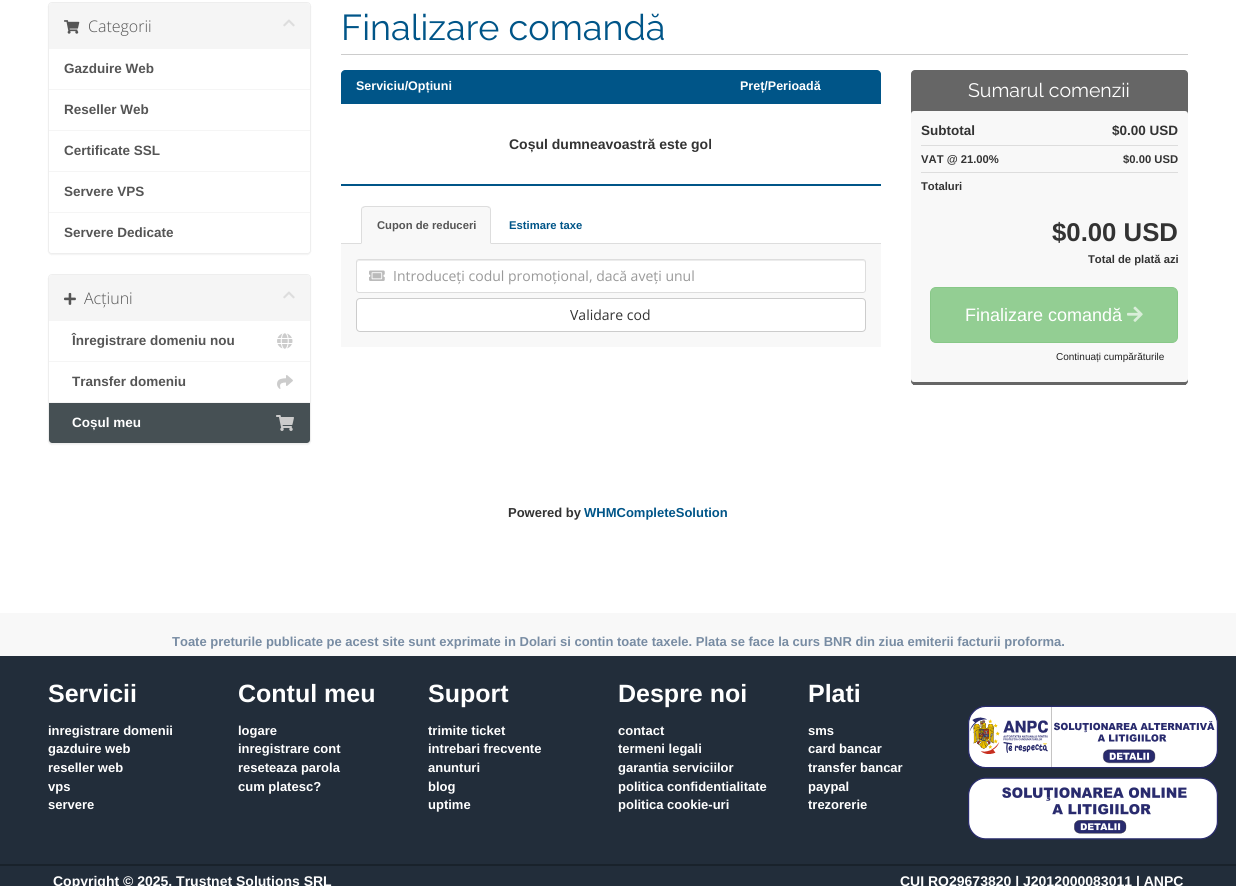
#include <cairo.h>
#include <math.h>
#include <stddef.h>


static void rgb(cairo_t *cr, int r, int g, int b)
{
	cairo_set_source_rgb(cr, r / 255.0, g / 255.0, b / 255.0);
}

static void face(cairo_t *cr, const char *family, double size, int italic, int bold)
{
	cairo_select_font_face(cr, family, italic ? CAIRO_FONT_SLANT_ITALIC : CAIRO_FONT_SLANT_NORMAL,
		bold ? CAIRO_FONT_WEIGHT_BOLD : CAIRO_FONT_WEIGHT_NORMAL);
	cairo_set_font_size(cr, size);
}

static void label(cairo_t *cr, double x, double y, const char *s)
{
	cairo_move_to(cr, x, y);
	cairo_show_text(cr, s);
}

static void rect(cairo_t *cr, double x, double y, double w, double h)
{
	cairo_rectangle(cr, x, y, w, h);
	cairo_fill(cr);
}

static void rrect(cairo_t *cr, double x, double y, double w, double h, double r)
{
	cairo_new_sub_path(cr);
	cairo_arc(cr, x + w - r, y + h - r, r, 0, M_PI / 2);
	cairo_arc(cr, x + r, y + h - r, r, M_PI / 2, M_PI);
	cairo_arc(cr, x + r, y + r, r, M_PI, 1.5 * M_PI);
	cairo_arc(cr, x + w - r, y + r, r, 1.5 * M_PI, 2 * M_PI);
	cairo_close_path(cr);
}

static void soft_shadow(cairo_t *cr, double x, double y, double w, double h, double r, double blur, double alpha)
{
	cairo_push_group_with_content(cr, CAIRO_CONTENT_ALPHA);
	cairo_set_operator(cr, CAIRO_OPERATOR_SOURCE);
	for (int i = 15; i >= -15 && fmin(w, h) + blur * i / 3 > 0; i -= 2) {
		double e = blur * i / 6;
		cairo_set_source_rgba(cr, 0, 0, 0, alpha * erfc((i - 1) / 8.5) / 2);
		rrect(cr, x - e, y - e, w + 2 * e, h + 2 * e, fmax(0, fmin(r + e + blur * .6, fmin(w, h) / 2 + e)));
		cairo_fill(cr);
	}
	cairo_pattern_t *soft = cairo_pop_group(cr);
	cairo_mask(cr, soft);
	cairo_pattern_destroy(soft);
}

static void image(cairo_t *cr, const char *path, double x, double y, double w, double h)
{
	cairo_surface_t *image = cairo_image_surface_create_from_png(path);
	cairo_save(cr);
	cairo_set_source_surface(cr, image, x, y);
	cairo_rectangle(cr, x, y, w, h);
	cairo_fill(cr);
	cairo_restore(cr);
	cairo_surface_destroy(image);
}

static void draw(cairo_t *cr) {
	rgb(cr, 248, 248, 248);
	cairo_paint(cr);
	rgb(cr, 255, 255, 255);
	rect(cr, 0, 0, 1236, 613);
	rgb(cr, 0, 0, 0);
	soft_shadow(cr, 48, 3, 263, 252, 4, 0.5, 0.05);
	rgb(cr, 255, 255, 255);
	rrect(cr, 48.5, 2.5, 262, 251, 3.5);
	cairo_fill_preserve(cr);
	rgb(cr, 238, 238, 238);
	cairo_set_line_width(cr, 1);
	cairo_stroke(cr);
	rgb(cr, 245, 245, 245);
	cairo_new_path(cr);
	cairo_move_to(cr, 52, 3);
	cairo_line_to(cr, 307, 3);
	cairo_curve_to(cr, 308.5, 3, 310, 4.5, 310, 6);
	cairo_line_to(cr, 310, 49);
	cairo_line_to(cr, 49, 49);
	cairo_line_to(cr, 49, 6);
	cairo_curve_to(cr, 49, 4.5, 50.5, 3, 52, 3);
	cairo_close_path(cr);
	cairo_fill(cr);
	image(cr, "image0.png", 64, 20, 16, 14);
	face(cr, "Open Sans Light", 16, 0, 0);
	rgb(cr, 85, 85, 85);
	label(cr, 88, 32, "Categorii");
	image(cr, "image1.png", 283, 19, 12, 8);
	rgb(cr, 245, 245, 245);
	rect(cr, 49, 89, 261, 1);
	face(cr, "Liberation Sans", 13.5, 0, 1);
	rgb(cr, 85, 85, 85);
	label(cr, 64, 73, "Gazduire Web");
	rgb(cr, 245, 245, 245);
	rect(cr, 49, 130, 261, 1);
	rgb(cr, 85, 85, 85);
	label(cr, 64, 114, "Reseller Web");
	rgb(cr, 245, 245, 245);
	rect(cr, 49, 171, 261, 1);
	rgb(cr, 85, 85, 85);
	label(cr, 64, 155, "Certificate SSL");
	rgb(cr, 245, 245, 245);
	rect(cr, 49, 212, 261, 1);
	rgb(cr, 85, 85, 85);
	label(cr, 64, 196, "Servere VPS");
	rgb(cr, 255, 255, 255);
	cairo_new_path(cr);
	cairo_move_to(cr, 49, 213);
	cairo_line_to(cr, 310, 213);
	cairo_line_to(cr, 310, 250);
	cairo_curve_to(cr, 310, 251.5, 308.5, 253, 307, 253);
	cairo_line_to(cr, 52, 253);
	cairo_curve_to(cr, 50.5, 253, 49, 251.5, 49, 250);
	cairo_close_path(cr);
	cairo_fill(cr);
	rgb(cr, 85, 85, 85);
	label(cr, 64, 237, "Servere Dedicate");
	rgb(cr, 0, 0, 0);
	soft_shadow(cr, 48, 275, 263, 170, 4, 0.5, 0.05);
	rgb(cr, 255, 255, 255);
	rrect(cr, 48.5, 274.5, 262, 169, 3.5);
	cairo_fill_preserve(cr);
	rgb(cr, 238, 238, 238);
	cairo_stroke(cr);
	rgb(cr, 245, 245, 245);
	cairo_new_path(cr);
	cairo_move_to(cr, 52, 275);
	cairo_line_to(cr, 307, 275);
	cairo_curve_to(cr, 308.5, 275, 310, 276.5, 310, 278);
	cairo_line_to(cr, 310, 321);
	cairo_line_to(cr, 49, 321);
	cairo_line_to(cr, 49, 278);
	cairo_curve_to(cr, 49, 276.5, 50.5, 275, 52, 275);
	cairo_close_path(cr);
	cairo_fill(cr);
	image(cr, "image2.png", 64, 292, 12, 13);
	face(cr, "Open Sans Light", 16, 0, 0);
	rgb(cr, 85, 85, 85);
	label(cr, 84, 304, "Acțiuni");
	image(cr, "image1.png", 283, 291, 12, 8);
	rgb(cr, 245, 245, 245);
	rect(cr, 49, 361, 261, 1);
	face(cr, "Liberation Sans", 13.5, 0, 1);
	rgb(cr, 85, 85, 85);
	label(cr, 72, 345, "Înregistrare domeniu nou");
	image(cr, "image3.png", 277, 333, 16, 16);
	rgb(cr, 245, 245, 245);
	rect(cr, 49, 402, 261, 1);
	rgb(cr, 85, 85, 85);
	label(cr, 72, 386, "Transfer domeniu");
	image(cr, "image4.png", 277, 375, 16, 14);
	rgb(cr, 70, 80, 84);
	cairo_new_path(cr);
	cairo_move_to(cr, 49, 403);
	cairo_line_to(cr, 310, 403);
	cairo_line_to(cr, 310, 440);
	cairo_curve_to(cr, 310, 441.5, 308.5, 443, 307, 443);
	cairo_line_to(cr, 52, 443);
	cairo_curve_to(cr, 50.5, 443, 49, 441.5, 49, 440);
	cairo_close_path(cr);
	cairo_fill(cr);
	rgb(cr, 255, 255, 255);
	label(cr, 72, 427, "Coșul meu");
	image(cr, "image5.png", 276, 415, 18, 16);
	rgb(cr, 204, 204, 204);
	rect(cr, 341, 54, 847, 1);
	face(cr, "Raleway", 36, 0, 0);
	rgb(cr, 0, 85, 136);
	label(cr, 341, 40, "Finalizare comandă");
	cairo_new_path(cr);
	cairo_move_to(cr, 345, 70);
	cairo_line_to(cr, 877, 70);
	cairo_curve_to(cr, 879, 70, 881, 72, 881, 74);
	cairo_line_to(cr, 881, 104);
	cairo_line_to(cr, 341, 104);
	cairo_line_to(cr, 341, 74);
	cairo_curve_to(cr, 341, 72, 343, 70, 345, 70);
	cairo_close_path(cr);
	cairo_fill(cr);
	face(cr, "Liberation Sans", 12.5, 0, 1);
	rgb(cr, 255, 255, 255);
	label(cr, 356, 90, "Serviciu/Opțiuni");
	label(cr, 740, 90, "Preț/Perioadă");
	rgb(cr, 0, 85, 136);
	rect(cr, 341, 184, 540, 2);
	face(cr, "Liberation Sans", 14, 0, 1);
	rgb(cr, 51, 51, 51);
	label(cr, 509, 149, "Coșul dumneavoastră este gol");
	rgb(cr, 221, 221, 221);
	rect(cr, 341, 243, 540, 1);
	rgb(cr, 248, 248, 248);
	cairo_new_path(cr);
	cairo_move_to(cr, 365, 206);
	cairo_line_to(cr, 487, 206);
	cairo_curve_to(cr, 489, 206, 491, 208, 491, 210);
	cairo_line_to(cr, 491, 244);
	cairo_line_to(cr, 361, 244);
	cairo_line_to(cr, 361, 210);
	cairo_curve_to(cr, 361, 208, 363, 206, 365, 206);
	cairo_close_path(cr);
	cairo_fill(cr);
	rgb(cr, 221, 221, 221);
	cairo_new_path(cr);
	cairo_move_to(cr, 365, 206);
	cairo_line_to(cr, 362, 207);
	cairo_line_to(cr, 363, 208);
	cairo_line_to(cr, 365, 207);
	cairo_line_to(cr, 487, 207);
	cairo_line_to(cr, 489, 208);
	cairo_line_to(cr, 490, 207);
	cairo_line_to(cr, 487, 206);
	cairo_close_path(cr);
	cairo_fill(cr);
	cairo_new_path(cr);
	cairo_move_to(cr, 491, 244);
	cairo_line_to(cr, 491, 210);
	cairo_curve_to(cr, 491, 209, 490.5, 208, 490, 207);
	cairo_line_to(cr, 489, 208);
	cairo_curve_to(cr, 490, 208, 490, 209, 490, 210);
	cairo_line_to(cr, 490, 243);
	cairo_close_path(cr);
	cairo_fill(cr);
	cairo_new_path(cr);
	cairo_move_to(cr, 361, 244);
	cairo_line_to(cr, 362, 243);
	cairo_line_to(cr, 362, 210);
	cairo_curve_to(cr, 362, 209, 362, 208, 363, 208);
	cairo_line_to(cr, 362, 207);
	cairo_curve_to(cr, 361.5, 208, 361, 209, 361, 210);
	cairo_close_path(cr);
	cairo_fill(cr);
	face(cr, "Liberation Sans", 11.25, 0, 1);
	rgb(cr, 85, 85, 85);
	label(cr, 377, 229, "Cupon de reduceri");
	rgb(cr, 0, 85, 136);
	label(cr, 509, 229, "Estimare taxe");
	rgb(cr, 248, 248, 248);
	rect(cr, 341, 244, 540, 103);
	rgb(cr, 255, 255, 255);
	rrect(cr, 356, 259, 510, 34, 3);
	cairo_fill(cr);
	rgb(cr, 236, 236, 236);
	cairo_new_path(cr);
	cairo_move_to(cr, 359, 261);
	cairo_line_to(cr, 863, 261);
	cairo_curve_to(cr, 864, 261, 865, 262, 865, 263);
	cairo_curve_to(cr, 865, 262, 865, 260, 863, 260);
	cairo_line_to(cr, 359, 260);
	cairo_line_to(cr, 357, 261);
	cairo_line_to(cr, 357, 263);
	cairo_curve_to(cr, 357, 262, 358, 261, 359, 261);
	cairo_close_path(cr);
	cairo_fill(cr);
	rrect(cr, 356.5, 259.5, 509, 33, 2.5);
	rgb(cr, 221, 221, 221);
	cairo_stroke(cr);
	image(cr, "image6.png", 369, 270, 16, 11);
	face(cr, "Open Sans", 14, 0, 0);
	rgb(cr, 153, 153, 153);
	label(cr, 393, 281, "Introduceți codul promoțional, dacă aveți unul");
	rgb(cr, 255, 255, 255);
	rrect(cr, 356.5, 298.5, 509, 33, 3.5);
	cairo_fill_preserve(cr);
	rgb(cr, 204, 204, 204);
	cairo_stroke(cr);
	rgb(cr, 51, 51, 51);
	label(cr, 570, 320, "Validare cod");
	rgb(cr, 102, 102, 102);
	rrect(cr, 911, 70, 277, 315, 4);
	cairo_fill(cr);
	rect(cr, 913, 384, 273, 1);
	face(cr, "Raleway", 19.5, 0, 0);
	rgb(cr, 255, 255, 255);
	label(cr, 968, 97, "Sumarul comenzii");
	rgb(cr, 248, 248, 248);
	rrect(cr, 911, 111, 277, 271, 3);
	cairo_fill(cr);
	rgb(cr, 221, 221, 221);
	rect(cr, 921, 145, 257, 1);
	face(cr, "Liberation Sans", 13.5, 0, 1);
	rgb(cr, 51, 51, 51);
	label(cr, 921, 135, "Subtotal");
	label(cr, 1112, 135, "$0.00 USD");
	rgb(cr, 221, 221, 221);
	rect(cr, 921, 172, 257, 1);
	face(cr, "Liberation Sans", 11.25, 0, 1);
	rgb(cr, 51, 51, 51);
	label(cr, 921, 163, "VAT @ 21.00%");
	label(cr, 1123, 163, "$0.00 USD");
	label(cr, 921, 190, "Totaluri");
	face(cr, "Liberation Sans", 25.75, 0, 1);
	label(cr, 1052, 241, "$0.00 USD");
	face(cr, "Liberation Sans", 11.25, 0, 1);
	label(cr, 1088, 263, "Total de plată azi");
	rgb(cr, 147, 206, 147);
	rrect(cr, 930.5, 287.5, 247, 55, 5.5);
	cairo_fill_preserve(cr);
	rgb(cr, 136, 200, 136);
	cairo_stroke(cr);
	face(cr, "Liberation Sans", 18, 0, 0);
	rgb(cr, 255, 255, 255);
	label(cr, 965, 321, "Finalizare comandă");
	image(cr, "image7.png", 1127, 306, 16, 16);
	face(cr, "Liberation Sans", 10, 0, 0);
	rgb(cr, 34, 34, 34);
	label(cr, 1056, 360, "Continuați cumpărăturile");
	face(cr, "Liberation Sans", 13, 0, 1);
	rgb(cr, 51, 51, 51);
	label(cr, 508, 517, "Powered by");
	rgb(cr, 0, 85, 136);
	label(cr, 584, 517, "WHMCompleteSolution");
	rgb(cr, 120, 140, 163);
	label(cr, 172, 646, "Toate preturile publicate pe acest site sunt exprimate in Dolari si contin toate taxele. Plata se face la curs BNR din ziua emiterii facturii proforma.");
	rgb(cr, 34, 45, 58);
	rect(cr, 0, 656, 1236, 208);
	face(cr, "Liberation Sans", 25, 0, 1);
	rgb(cr, 255, 255, 255);
	label(cr, 48, 702, "Servicii");
	face(cr, "Liberation Sans", 13, 0, 1);
	label(cr, 48, 735, "inregistrare domenii");
	label(cr, 48, 753, "gazduire web");
	label(cr, 48, 772, "reseller web");
	label(cr, 48, 791, "vps");
	label(cr, 48, 809, "servere");
	face(cr, "Liberation Sans", 25, 0, 1);
	label(cr, 238, 702, "Contul meu");
	face(cr, "Liberation Sans", 13, 0, 1);
	label(cr, 238, 735, "logare");
	label(cr, 238, 753, "inregistrare cont");
	label(cr, 238, 772, "reseteaza parola");
	label(cr, 238, 791, "cum platesc?");
	face(cr, "Liberation Sans", 25, 0, 1);
	label(cr, 428, 702, "Suport");
	face(cr, "Liberation Sans", 13, 0, 1);
	label(cr, 428, 735, "trimite ticket");
	label(cr, 428, 753, "intrebari frecvente");
	label(cr, 428, 772, "anunturi");
	label(cr, 428, 791, "blog");
	label(cr, 428, 809, "uptime");
	face(cr, "Liberation Sans", 25, 0, 1);
	label(cr, 618, 702, "Despre noi");
	face(cr, "Liberation Sans", 13, 0, 1);
	label(cr, 618, 735, "contact");
	label(cr, 618, 753, "termeni legali");
	label(cr, 618, 772, "garantia serviciilor");
	label(cr, 618, 791, "politica confidentialitate");
	label(cr, 618, 809, "politica cookie-uri");
	face(cr, "Liberation Sans", 25, 0, 1);
	label(cr, 808, 702, "Plati");
	face(cr, "Liberation Sans", 13, 0, 1);
	label(cr, 808, 735, "sms");
	label(cr, 808, 753, "card bancar");
	label(cr, 808, 772, "transfer bancar");
	label(cr, 808, 791, "paypal");
	label(cr, 808, 809, "trezorerie");
	image(cr, "image8.png", 968, 705, 250, 64);
	image(cr, "image9.png", 968, 777, 250, 63);
	rgb(cr, 34, 45, 58);
	rect(cr, 0, 866, 1236, 20);
	rgb(cr, 25, 34, 43);
	rect(cr, 0, 864, 1236, 2);
	face(cr, "Liberation Sans", 14, 0, 1);
	rgb(cr, 255, 255, 255);
	label(cr, 53, 886, "Copyright © 2025, Trustnet Solutions SRL");
	label(cr, 900, 886, "CUI RO29673820 | J2012000083011 | ANPC");
}

int main(void) {
	cairo_surface_t *surface = cairo_image_surface_create(CAIRO_FORMAT_RGB24, 1236, 886);
	cairo_t *cr = cairo_create(surface);
	cairo_font_options_t *options = cairo_font_options_create();
	cairo_font_options_set_hint_metrics(options, CAIRO_HINT_METRICS_OFF);
	cairo_font_options_set_hint_style(options, CAIRO_HINT_STYLE_NONE);
	cairo_set_font_options(cr, options);
	cairo_set_miter_limit(cr, 4);
	draw(cr);
	cairo_surface_write_to_png(surface, "render.png");
	cairo_font_options_destroy(options);
	cairo_destroy(cr);
	cairo_surface_destroy(surface);
	return 0;
}
